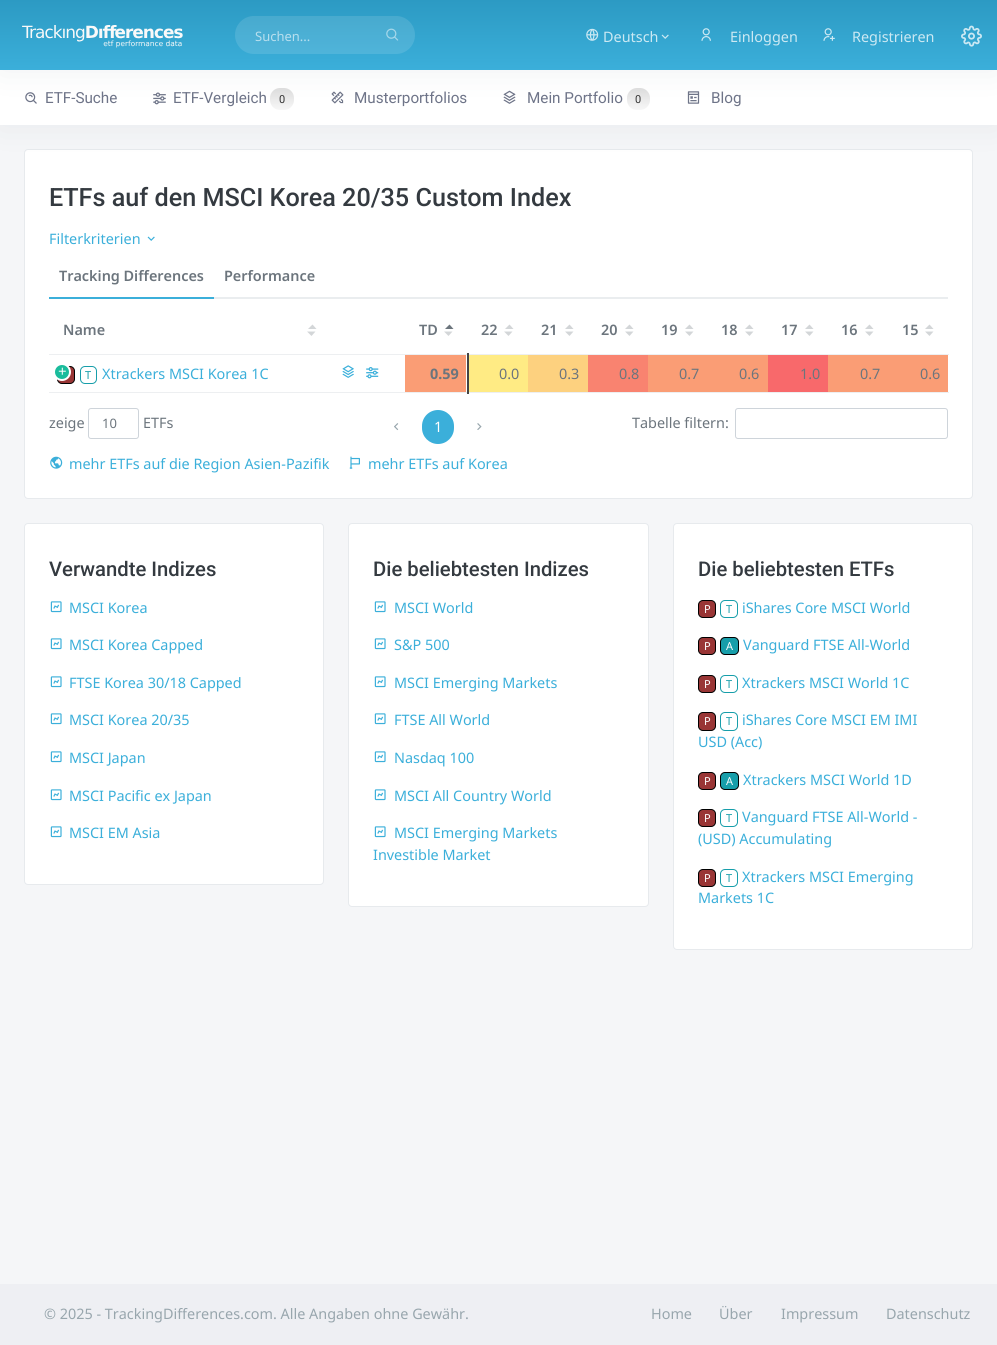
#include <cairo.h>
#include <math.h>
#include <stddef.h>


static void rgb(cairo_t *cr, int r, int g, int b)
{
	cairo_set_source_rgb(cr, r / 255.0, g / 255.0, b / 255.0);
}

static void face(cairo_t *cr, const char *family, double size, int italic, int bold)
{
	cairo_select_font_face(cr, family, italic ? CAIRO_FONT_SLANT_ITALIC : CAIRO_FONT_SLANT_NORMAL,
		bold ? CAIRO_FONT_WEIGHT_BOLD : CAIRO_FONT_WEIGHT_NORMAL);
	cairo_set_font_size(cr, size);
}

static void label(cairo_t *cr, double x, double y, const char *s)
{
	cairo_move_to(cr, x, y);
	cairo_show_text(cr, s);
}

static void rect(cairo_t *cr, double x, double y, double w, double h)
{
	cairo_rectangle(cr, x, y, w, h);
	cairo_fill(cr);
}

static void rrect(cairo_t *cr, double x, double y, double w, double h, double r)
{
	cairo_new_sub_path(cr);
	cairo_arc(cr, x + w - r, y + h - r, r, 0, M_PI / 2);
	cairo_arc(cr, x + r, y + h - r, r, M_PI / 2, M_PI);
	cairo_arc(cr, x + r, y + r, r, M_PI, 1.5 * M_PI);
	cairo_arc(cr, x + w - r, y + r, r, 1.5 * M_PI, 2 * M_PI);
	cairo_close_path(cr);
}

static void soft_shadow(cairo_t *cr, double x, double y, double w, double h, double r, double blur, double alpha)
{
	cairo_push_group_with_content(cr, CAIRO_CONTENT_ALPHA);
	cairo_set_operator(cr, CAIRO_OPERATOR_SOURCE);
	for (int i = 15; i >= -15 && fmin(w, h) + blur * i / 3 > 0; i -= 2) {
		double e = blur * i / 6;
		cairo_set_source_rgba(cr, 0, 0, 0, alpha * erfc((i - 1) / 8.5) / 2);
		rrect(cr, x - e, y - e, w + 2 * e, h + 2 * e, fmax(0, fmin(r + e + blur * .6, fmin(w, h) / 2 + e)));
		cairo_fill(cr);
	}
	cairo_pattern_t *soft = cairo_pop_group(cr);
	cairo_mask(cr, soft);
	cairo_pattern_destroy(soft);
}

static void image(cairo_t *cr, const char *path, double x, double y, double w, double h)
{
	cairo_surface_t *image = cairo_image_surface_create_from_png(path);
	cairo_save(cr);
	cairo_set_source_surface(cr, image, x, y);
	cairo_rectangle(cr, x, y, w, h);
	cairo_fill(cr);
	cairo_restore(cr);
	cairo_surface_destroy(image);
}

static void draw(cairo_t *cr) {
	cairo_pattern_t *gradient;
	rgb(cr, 245, 246, 248);
	cairo_paint(cr);
	rgb(cr, 255, 255, 255);
	rrect(cr, 24.5, 149.5, 948, 349, 3.5);
	cairo_fill_preserve(cr);
	rgb(cr, 231, 234, 237);
	cairo_set_line_width(cr, 1);
	cairo_stroke(cr);
	rgb(cr, 154, 161, 171);
	soft_shadow(cr, 0, 70, 997, 55, 0, 17.5, 0.15);
	rgb(cr, 255, 255, 255);
	rect(cr, 0, 70, 997, 55);
	image(cr, "image7.png", 25, 92, 12, 12);
	image(cr, "image8.png", 153, 92, 13, 13);
	gradient = cairo_pattern_create_linear(282, 88, 282, 110);
	cairo_pattern_add_color_stop_rgba(gradient, 0, 0.867, 0.867, 0.867, 1);
	cairo_pattern_add_color_stop_rgba(gradient, 1, 0.969, 0.969, 0.969, 1);
	cairo_set_source(cr, gradient);
	cairo_pattern_destroy(gradient);
	rrect(cr, 270, 88, 24, 22, 10);
	cairo_fill(cr);
	image(cr, "image9.png", 331, 91, 13, 13);
	image(cr, "image10.png", 503, 90, 13, 14);
	gradient = cairo_pattern_create_linear(639, 88, 639, 110);
	cairo_pattern_add_color_stop_rgba(gradient, 0, 0.867, 0.867, 0.867, 1);
	cairo_pattern_add_color_stop_rgba(gradient, 1, 0.969, 0.969, 0.969, 1);
	cairo_set_source(cr, gradient);
	cairo_pattern_destroy(gradient);
	rrect(cr, 627, 88, 23, 22, 10);
	cairo_fill(cr);
	image(cr, "image11.png", 687, 91, 13, 13);
	rgb(cr, 154, 161, 171);
	soft_shadow(cr, 0, 0, 997, 70, 0, 17.5, 0.15);
	gradient = cairo_pattern_create_linear(499, 70, 499, 0);
	cairo_pattern_add_color_stop_rgba(gradient, 0, 0.231, 0.686, 0.855, 1);
	cairo_pattern_add_color_stop_rgba(gradient, 1, 0.173, 0.604, 0.765, 1);
	cairo_set_source(cr, gradient);
	cairo_pattern_destroy(gradient);
	rect(cr, 0, 0, 997, 70);
	image(cr, "image0.png", 22, 25, 161, 23);
	cairo_set_source_rgba(cr, 1, 1, 1, 0.12);
	cairo_new_path(cr);
	cairo_move_to(cr, 254, 16);
	cairo_line_to(cr, 370, 16);
	cairo_line_to(cr, 370, 54);
	cairo_line_to(cr, 254, 54);
	cairo_curve_to(cr, 243.5, 54, 235, 45.5, 235, 35);
	cairo_curve_to(cr, 235, 24.5, 243.5, 16, 254, 16);
	cairo_close_path(cr);
	cairo_fill(cr);
	face(cr, "Noto Sans", 13, 0, 0);
	rgb(cr, 184, 223, 238);
	label(cr, 255, 41, "Suchen...");
	cairo_set_source_rgba(cr, 1, 1, 1, 0.12);
	cairo_new_path(cr);
	cairo_move_to(cr, 370, 16);
	cairo_line_to(cr, 396, 16);
	cairo_curve_to(cr, 406.5, 16, 415, 24.5, 415, 35);
	cairo_curve_to(cr, 415, 45.5, 406.5, 54, 396, 54);
	cairo_line_to(cr, 370, 54);
	cairo_close_path(cr);
	cairo_fill(cr);
	image(cr, "image1.png", 386, 28, 13, 13);
	image(cr, "image2.png", 586, 28, 13, 13);
	face(cr, "Noto Sans", 14.4, 0, 0);
	rgb(cr, 204, 233, 243);
	label(cr, 603, 42, "Deutsch");
	image(cr, "image3.png", 661, 34, 8, 5);
	image(cr, "image4.png", 701, 28, 10, 13);
	label(cr, 730, 42, "Einloggen");
	image(cr, "image5.png", 823, 28, 12, 13);
	label(cr, 852, 42, "Registrieren");
	image(cr, "image6.png", 961, 25, 21, 22);
	face(cr, "Roboto", 15.25, 0, 0);
	rgb(cr, 110, 116, 136);
	label(cr, 45, 103, "ETF-Suche");
	label(cr, 173, 103, "ETF-Vergleich");
	face(cr, "Roboto", 11, 0, 0);
	rgb(cr, 51, 51, 51);
	label(cr, 279, 103, "0");
	face(cr, "Roboto", 15.25, 0, 0);
	rgb(cr, 110, 116, 136);
	label(cr, 354, 103, "Musterportfolios");
	label(cr, 527, 103, "Mein Portfolio");
	face(cr, "Roboto", 11, 0, 0);
	rgb(cr, 51, 51, 51);
	label(cr, 635, 103, "0");
	face(cr, "Roboto", 15.25, 0, 0);
	rgb(cr, 110, 116, 136);
	label(cr, 711, 103, "Blog");
	face(cr, "Roboto Medium", 25.2, 0, 0);
	rgb(cr, 52, 58, 64);
	label(cr, 49, 206, "ETFs auf den MSCI Korea 20/35 Custom Index");
	face(cr, "Noto Sans", 14.4, 0, 0);
	rgb(cr, 59, 175, 218);
	label(cr, 49, 244, "Filterkriterien");
	image(cr, "image12.png", 147, 236, 8, 5);
	rgb(cr, 234, 237, 239);
	rect(cr, 214, 297, 734, 2);
	rgb(cr, 59, 175, 218);
	rect(cr, 49, 297, 165, 2);
	face(cr, "Noto Sans SemiBold", 14.4, 0, 0);
	rgb(cr, 108, 117, 125);
	label(cr, 59, 281, "Tracking Differences");
	label(cr, 224, 281, "Performance");
	label(cr, 63, 335, "Name");
	rgb(cr, 211, 214, 216);
	cairo_new_path(cr);
	cairo_move_to(cr, 308, 329);
	cairo_line_to(cr, 312.5, 324.5);
	cairo_line_to(cr, 316.5, 329);
	cairo_close_path(cr);
	cairo_move_to(cr, 307, 331.5);
	cairo_line_to(cr, 311.5, 336);
	cairo_line_to(cr, 315.5, 331.5);
	cairo_close_path(cr);
	cairo_fill(cr);
	rgb(cr, 108, 117, 125);
	label(cr, 419, 335, "TD");
	cairo_new_path(cr);
	cairo_move_to(cr, 445, 329);
	cairo_line_to(cr, 449.5, 324.5);
	cairo_line_to(cr, 453.5, 329);
	cairo_close_path(cr);
	cairo_fill(cr);
	rgb(cr, 211, 214, 216);
	cairo_new_path(cr);
	cairo_move_to(cr, 444, 331.5);
	cairo_line_to(cr, 448.5, 336);
	cairo_line_to(cr, 452.5, 331.5);
	cairo_close_path(cr);
	cairo_fill(cr);
	rgb(cr, 108, 117, 125);
	label(cr, 481, 335, "22");
	rgb(cr, 211, 214, 216);
	cairo_new_path(cr);
	cairo_move_to(cr, 505, 329);
	cairo_line_to(cr, 509.5, 324.5);
	cairo_line_to(cr, 513.5, 329);
	cairo_close_path(cr);
	cairo_move_to(cr, 504, 331.5);
	cairo_line_to(cr, 508.5, 336);
	cairo_line_to(cr, 512.5, 331.5);
	cairo_close_path(cr);
	cairo_fill(cr);
	rgb(cr, 108, 117, 125);
	label(cr, 541, 335, "21");
	rgb(cr, 211, 214, 216);
	cairo_new_path(cr);
	cairo_move_to(cr, 565, 329);
	cairo_line_to(cr, 569.5, 324.5);
	cairo_line_to(cr, 573.5, 329);
	cairo_close_path(cr);
	cairo_move_to(cr, 565, 331.5);
	cairo_line_to(cr, 569.5, 336);
	cairo_line_to(cr, 573.5, 331.5);
	cairo_close_path(cr);
	cairo_fill(cr);
	rgb(cr, 108, 117, 125);
	label(cr, 601, 335, "20");
	rgb(cr, 211, 214, 216);
	cairo_new_path(cr);
	cairo_move_to(cr, 625, 329);
	cairo_line_to(cr, 629.5, 324.5);
	cairo_line_to(cr, 633.5, 329);
	cairo_close_path(cr);
	cairo_move_to(cr, 625, 331.5);
	cairo_line_to(cr, 629.5, 336);
	cairo_line_to(cr, 633.5, 331.5);
	cairo_close_path(cr);
	cairo_fill(cr);
	rgb(cr, 108, 117, 125);
	label(cr, 661, 335, "19");
	rgb(cr, 211, 214, 216);
	cairo_new_path(cr);
	cairo_move_to(cr, 685, 329);
	cairo_line_to(cr, 689.5, 324.5);
	cairo_line_to(cr, 693.5, 329);
	cairo_close_path(cr);
	cairo_move_to(cr, 685, 331.5);
	cairo_line_to(cr, 689.5, 336);
	cairo_line_to(cr, 693.5, 331.5);
	cairo_close_path(cr);
	cairo_fill(cr);
	rgb(cr, 108, 117, 125);
	label(cr, 721, 335, "18");
	rgb(cr, 211, 214, 216);
	cairo_new_path(cr);
	cairo_move_to(cr, 745, 329);
	cairo_line_to(cr, 749.5, 324.5);
	cairo_line_to(cr, 753.5, 329);
	cairo_close_path(cr);
	cairo_move_to(cr, 745, 331.5);
	cairo_line_to(cr, 749.5, 336);
	cairo_line_to(cr, 753.5, 331.5);
	cairo_close_path(cr);
	cairo_fill(cr);
	rgb(cr, 108, 117, 125);
	label(cr, 781, 335, "17");
	rgb(cr, 211, 214, 216);
	cairo_new_path(cr);
	cairo_move_to(cr, 805, 329);
	cairo_line_to(cr, 809.5, 324.5);
	cairo_line_to(cr, 813.5, 329);
	cairo_close_path(cr);
	cairo_move_to(cr, 805, 331.5);
	cairo_line_to(cr, 809.5, 336);
	cairo_line_to(cr, 813.5, 331.5);
	cairo_close_path(cr);
	cairo_fill(cr);
	rgb(cr, 108, 117, 125);
	label(cr, 841, 335, "16");
	rgb(cr, 211, 214, 216);
	cairo_new_path(cr);
	cairo_move_to(cr, 865, 329);
	cairo_line_to(cr, 869.5, 324.5);
	cairo_line_to(cr, 873.5, 329);
	cairo_close_path(cr);
	cairo_move_to(cr, 865, 331.5);
	cairo_line_to(cr, 869.5, 336);
	cairo_line_to(cr, 873.5, 331.5);
	cairo_close_path(cr);
	cairo_fill(cr);
	rgb(cr, 237, 239, 241);
	rect(cr, 49, 354, 900, 1);
	rgb(cr, 108, 117, 125);
	label(cr, 902, 335, "15");
	rgb(cr, 211, 214, 216);
	cairo_new_path(cr);
	cairo_move_to(cr, 925, 329);
	cairo_line_to(cr, 929.5, 324.5);
	cairo_line_to(cr, 933.5, 329);
	cairo_close_path(cr);
	cairo_move_to(cr, 925, 331.5);
	cairo_line_to(cr, 929.5, 336);
	cairo_line_to(cr, 933.5, 331.5);
	cairo_close_path(cr);
	cairo_fill(cr);
	rgb(cr, 153, 53, 53);
	rrect(cr, 57.5, 366.5, 17, 17, 4.5);
	cairo_fill_preserve(cr);
	rgb(cr, 0, 0, 0);
	cairo_stroke(cr);
	rgb(cr, 26, 188, 156);
	cairo_arc(cr, 62, 372, 8, 0, 2 * M_PI);
	cairo_fill_preserve(cr);
	rgb(cr, 255, 255, 255);
	cairo_set_line_width(cr, 2);
	cairo_stroke(cr);
	face(cr, "Liberation Mono", 14.4, 0, 0);
	label(cr, 58, 376, "+");
	rrect(cr, 80.5, 366.5, 16, 17, 4.5);
	rgb(cr, 23, 158, 170);
	cairo_set_line_width(cr, 1);
	cairo_stroke(cr);
	face(cr, "Noto Sans", 11, 0, 0);
	label(cr, 85, 379, "T");
	face(cr, "Noto Sans", 14.4, 0, 0);
	rgb(cr, 59, 175, 218);
	label(cr, 102, 379, "Xtrackers MSCI Korea 1C");
	image(cr, "image13.png", 342, 365, 12, 13);
	image(cr, "image14.png", 366, 367, 13, 12);
	rgb(cr, 250, 157, 117);
	rect(cr, 405, 355, 61, 37);
	rgb(cr, 237, 239, 241);
	rect(cr, 49, 392, 900, 1);
	rgb(cr, 68, 68, 68);
	rect(cr, 467, 353, 2, 41);
	face(cr, "Noto Sans", 14.4, 0, 1);
	rgb(cr, 108, 117, 125);
	label(cr, 430, 379, "0.59");
	rgb(cr, 255, 235, 132);
	rect(cr, 469, 355, 59, 37);
	face(cr, "Noto Sans", 14.4, 0, 0);
	rgb(cr, 108, 117, 125);
	label(cr, 499, 379, "0.0");
	rgb(cr, 253, 209, 127);
	rect(cr, 528, 355, 60, 37);
	rgb(cr, 108, 117, 125);
	label(cr, 559, 379, "0.3");
	rgb(cr, 249, 131, 112);
	rect(cr, 588, 355, 60, 37);
	rgb(cr, 108, 117, 125);
	label(cr, 619, 379, "0.8");
	rgb(cr, 250, 157, 117);
	rect(cr, 648, 355, 120, 37);
	rgb(cr, 108, 117, 125);
	label(cr, 679, 379, "0.7");
	label(cr, 739, 379, "0.6");
	rgb(cr, 248, 105, 107);
	rect(cr, 768, 355, 60, 37);
	rgb(cr, 108, 117, 125);
	label(cr, 800, 379, "1.0");
	rgb(cr, 250, 157, 117);
	rect(cr, 828, 355, 120, 37);
	rgb(cr, 108, 117, 125);
	label(cr, 860, 379, "0.7");
	label(cr, 920, 379, "0.6");
	label(cr, 49, 428, "zeige");
	rrect(cr, 88.5, 408.5, 50, 30, 2.5);
	rgb(cr, 206, 212, 218);
	cairo_stroke(cr);
	face(cr, "Noto Sans", 13, 0, 0);
	rgb(cr, 108, 117, 125);
	label(cr, 102, 428, "10");
	face(cr, "Noto Sans", 14.4, 0, 0);
	label(cr, 143, 428, "ETFs");
	image(cr, "image15.png", 394, 423, 5, 8);
	rgb(cr, 59, 175, 218);
	rrect(cr, 422, 410, 32, 34, 16);
	cairo_fill(cr);
	rgb(cr, 255, 255, 255);
	label(cr, 434, 432, "1");
	image(cr, "image16.png", 477, 423, 5, 7);
	rgb(cr, 108, 117, 125);
	label(cr, 632, 428, "Tabelle filtern:");
	rrect(cr, 735.5, 408.5, 212, 30, 2.5);
	rgb(cr, 206, 212, 218);
	cairo_stroke(cr);
	image(cr, "image17.png", 50, 456, 13, 13);
	rgb(cr, 59, 175, 218);
	label(cr, 69, 469, "mehr ETFs auf die Region Asien-Pazifik");
	image(cr, "image18.png", 349, 456, 11, 13);
	label(cr, 368, 469, "mehr ETFs auf Korea");
	rgb(cr, 255, 255, 255);
	rrect(cr, 24.5, 523.5, 299, 361, 3.5);
	cairo_fill_preserve(cr);
	rgb(cr, 231, 234, 237);
	cairo_stroke(cr);
	face(cr, "Roboto Medium", 20.25, 0, 0);
	rgb(cr, 52, 58, 64);
	label(cr, 49, 576, "Verwandte Indizes");
	image(cr, "image19.png", 50, 601, 12, 12);
	face(cr, "Noto Sans", 14.4, 0, 0);
	rgb(cr, 59, 175, 218);
	label(cr, 69, 613, "MSCI Korea");
	image(cr, "image19.png", 50, 638, 12, 12);
	label(cr, 69, 650, "MSCI Korea Capped");
	image(cr, "image19.png", 50, 676, 12, 12);
	label(cr, 69, 688, "FTSE Korea 30/18 Capped");
	image(cr, "image19.png", 50, 713, 12, 12);
	label(cr, 69, 725, "MSCI Korea 20/35");
	image(cr, "image19.png", 50, 751, 12, 12);
	label(cr, 69, 763, "MSCI Japan");
	image(cr, "image19.png", 50, 789, 12, 12);
	label(cr, 69, 801, "MSCI Pacific ex Japan");
	image(cr, "image19.png", 50, 826, 12, 12);
	label(cr, 69, 838, "MSCI EM Asia");
	rgb(cr, 255, 255, 255);
	rrect(cr, 348.5, 523.5, 300, 383, 3.5);
	cairo_fill_preserve(cr);
	rgb(cr, 231, 234, 237);
	cairo_stroke(cr);
	face(cr, "Roboto Medium", 20.25, 0, 0);
	rgb(cr, 52, 58, 64);
	label(cr, 373, 576, "Die beliebtesten Indizes");
	image(cr, "image19.png", 374, 601, 12, 12);
	face(cr, "Noto Sans", 14.4, 0, 0);
	rgb(cr, 59, 175, 218);
	label(cr, 394, 613, "MSCI World");
	image(cr, "image19.png", 374, 638, 12, 12);
	label(cr, 394, 650, "S&P 500");
	image(cr, "image19.png", 374, 676, 12, 12);
	label(cr, 394, 688, "MSCI Emerging Markets");
	image(cr, "image19.png", 374, 713, 12, 12);
	label(cr, 394, 725, "FTSE All World");
	image(cr, "image19.png", 374, 751, 12, 12);
	label(cr, 394, 763, "Nasdaq 100");
	image(cr, "image19.png", 374, 789, 12, 12);
	label(cr, 394, 801, "MSCI All Country World");
	image(cr, "image19.png", 374, 826, 12, 12);
	label(cr, 394, 838, "MSCI Emerging Markets");
	label(cr, 373, 860, "Investible Market");
	rgb(cr, 255, 255, 255);
	rrect(cr, 673.5, 523.5, 299, 426, 3.5);
	cairo_fill_preserve(cr);
	rgb(cr, 231, 234, 237);
	cairo_stroke(cr);
	face(cr, "Roboto Medium", 20.25, 0, 0);
	rgb(cr, 52, 58, 64);
	label(cr, 698, 576, "Die beliebtesten ETFs");
	rgb(cr, 153, 53, 53);
	rrect(cr, 698.5, 600.5, 17, 17, 4.5);
	cairo_fill_preserve(cr);
	rgb(cr, 0, 0, 0);
	cairo_stroke(cr);
	face(cr, "Noto Sans", 11, 0, 0);
	rgb(cr, 255, 255, 255);
	label(cr, 704, 613, "P");
	rrect(cr, 720.5, 600.5, 17, 17, 4.5);
	rgb(cr, 23, 158, 170);
	cairo_stroke(cr);
	label(cr, 726, 613, "T");
	face(cr, "Noto Sans", 14.4, 0, 0);
	rgb(cr, 59, 175, 218);
	label(cr, 742, 613, "iShares Core MSCI World");
	rgb(cr, 153, 53, 53);
	rrect(cr, 698.5, 637.5, 17, 17, 4.5);
	cairo_fill_preserve(cr);
	rgb(cr, 0, 0, 0);
	cairo_stroke(cr);
	face(cr, "Noto Sans", 11, 0, 0);
	rgb(cr, 255, 255, 255);
	label(cr, 704, 650, "P");
	rgb(cr, 23, 158, 170);
	rrect(cr, 720.5, 637.5, 18, 17, 4.5);
	cairo_fill_preserve(cr);
	rgb(cr, 0, 0, 0);
	cairo_stroke(cr);
	rgb(cr, 255, 255, 255);
	label(cr, 726, 650, "A");
	face(cr, "Noto Sans", 14.4, 0, 0);
	rgb(cr, 59, 175, 218);
	label(cr, 743, 650, "Vanguard FTSE All-World");
	rgb(cr, 153, 53, 53);
	rrect(cr, 698.5, 675.5, 17, 17, 4.5);
	cairo_fill_preserve(cr);
	rgb(cr, 0, 0, 0);
	cairo_stroke(cr);
	face(cr, "Noto Sans", 11, 0, 0);
	rgb(cr, 255, 255, 255);
	label(cr, 704, 688, "P");
	rrect(cr, 720.5, 675.5, 17, 17, 4.5);
	rgb(cr, 23, 158, 170);
	cairo_stroke(cr);
	label(cr, 726, 688, "T");
	face(cr, "Noto Sans", 14.4, 0, 0);
	rgb(cr, 59, 175, 218);
	label(cr, 742, 688, "Xtrackers MSCI World 1C");
	rgb(cr, 153, 53, 53);
	rrect(cr, 698.5, 712.5, 17, 18, 4.5);
	cairo_fill_preserve(cr);
	rgb(cr, 0, 0, 0);
	cairo_stroke(cr);
	face(cr, "Noto Sans", 11, 0, 0);
	rgb(cr, 255, 255, 255);
	label(cr, 704, 725, "P");
	rrect(cr, 720.5, 712.5, 17, 18, 4.5);
	rgb(cr, 23, 158, 170);
	cairo_stroke(cr);
	label(cr, 726, 725, "T");
	face(cr, "Noto Sans", 14.4, 0, 0);
	rgb(cr, 59, 175, 218);
	label(cr, 742, 725, "iShares Core MSCI EM IMI");
	label(cr, 698, 747, "USD (Acc)");
	rgb(cr, 153, 53, 53);
	rrect(cr, 698.5, 772.5, 17, 17, 4.5);
	cairo_fill_preserve(cr);
	rgb(cr, 0, 0, 0);
	cairo_stroke(cr);
	face(cr, "Noto Sans", 11, 0, 0);
	rgb(cr, 255, 255, 255);
	label(cr, 704, 785, "P");
	rgb(cr, 23, 158, 170);
	rrect(cr, 720.5, 772.5, 18, 17, 4.5);
	cairo_fill_preserve(cr);
	rgb(cr, 0, 0, 0);
	cairo_stroke(cr);
	rgb(cr, 255, 255, 255);
	label(cr, 726, 785, "A");
	face(cr, "Noto Sans", 14.4, 0, 0);
	rgb(cr, 59, 175, 218);
	label(cr, 743, 785, "Xtrackers MSCI World 1D");
	rgb(cr, 153, 53, 53);
	rrect(cr, 698.5, 809.5, 17, 17, 4.5);
	cairo_fill_preserve(cr);
	rgb(cr, 0, 0, 0);
	cairo_stroke(cr);
	face(cr, "Noto Sans", 11, 0, 0);
	rgb(cr, 255, 255, 255);
	label(cr, 704, 822, "P");
	rrect(cr, 720.5, 809.5, 17, 17, 4.5);
	rgb(cr, 23, 158, 170);
	cairo_stroke(cr);
	label(cr, 726, 822, "T");
	face(cr, "Noto Sans", 14.4, 0, 0);
	rgb(cr, 59, 175, 218);
	label(cr, 742, 822, "Vanguard FTSE All-World -");
	label(cr, 698, 844, "(USD) Accumulating");
	rgb(cr, 153, 53, 53);
	rrect(cr, 698.5, 869.5, 17, 17, 4.5);
	cairo_fill_preserve(cr);
	rgb(cr, 0, 0, 0);
	cairo_stroke(cr);
	face(cr, "Noto Sans", 11, 0, 0);
	rgb(cr, 255, 255, 255);
	label(cr, 704, 882, "P");
	rrect(cr, 720.5, 869.5, 17, 17, 4.5);
	rgb(cr, 23, 158, 170);
	cairo_stroke(cr);
	label(cr, 726, 882, "T");
	face(cr, "Noto Sans", 14.4, 0, 0);
	rgb(cr, 59, 175, 218);
	label(cr, 742, 882, "Xtrackers MSCI Emerging");
	label(cr, 698, 903, "Markets 1C");
	rgb(cr, 238, 239, 243);
	rect(cr, 0, 1284, 997, 61);
	rgb(cr, 152, 166, 173);
	label(cr, 44, 1319, "© 2025 - TrackingDifferences.com. Alle Angaben ohne Gewähr.");
	label(cr, 651, 1319, "Home");
	label(cr, 719, 1319, "Über");
	label(cr, 781, 1319, "Impressum");
	label(cr, 886, 1319, "Datenschutz");
}

int main(void) {
	cairo_surface_t *surface = cairo_image_surface_create(CAIRO_FORMAT_RGB24, 997, 1345);
	cairo_t *cr = cairo_create(surface);
	cairo_font_options_t *options = cairo_font_options_create();
	cairo_font_options_set_hint_metrics(options, CAIRO_HINT_METRICS_OFF);
	cairo_font_options_set_hint_style(options, CAIRO_HINT_STYLE_NONE);
	cairo_set_font_options(cr, options);
	cairo_set_miter_limit(cr, 4);
	draw(cr);
	cairo_surface_write_to_png(surface, "render.png");
	cairo_font_options_destroy(options);
	cairo_destroy(cr);
	cairo_surface_destroy(surface);
	return 0;
}
